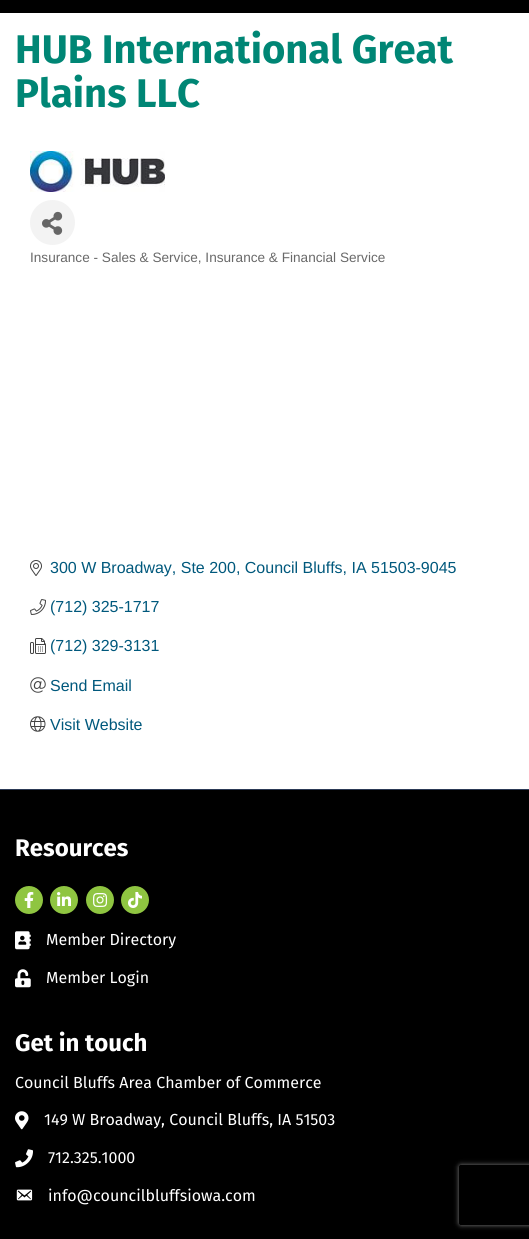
#include <cairo.h>
#include <math.h>
#include <stddef.h>


static void rgb(cairo_t *cr, int r, int g, int b)
{
	cairo_set_source_rgb(cr, r / 255.0, g / 255.0, b / 255.0);
}

static void face(cairo_t *cr, const char *family, double size, int italic, int bold)
{
	cairo_select_font_face(cr, family, italic ? CAIRO_FONT_SLANT_ITALIC : CAIRO_FONT_SLANT_NORMAL,
		bold ? CAIRO_FONT_WEIGHT_BOLD : CAIRO_FONT_WEIGHT_NORMAL);
	cairo_set_font_size(cr, size);
}

static void label(cairo_t *cr, double x, double y, const char *s)
{
	cairo_move_to(cr, x, y);
	cairo_show_text(cr, s);
}

static void rect(cairo_t *cr, double x, double y, double w, double h)
{
	cairo_rectangle(cr, x, y, w, h);
	cairo_fill(cr);
}

static void rrect(cairo_t *cr, double x, double y, double w, double h, double r)
{
	cairo_new_sub_path(cr);
	cairo_arc(cr, x + w - r, y + h - r, r, 0, M_PI / 2);
	cairo_arc(cr, x + r, y + h - r, r, M_PI / 2, M_PI);
	cairo_arc(cr, x + r, y + r, r, M_PI, 1.5 * M_PI);
	cairo_arc(cr, x + w - r, y + r, r, 1.5 * M_PI, 2 * M_PI);
	cairo_close_path(cr);
}

static void soft_shadow(cairo_t *cr, double x, double y, double w, double h, double r, double blur, double alpha)
{
	cairo_push_group_with_content(cr, CAIRO_CONTENT_ALPHA);
	cairo_set_operator(cr, CAIRO_OPERATOR_SOURCE);
	for (int i = 15; i >= -15 && fmin(w, h) + blur * i / 3 > 0; i -= 2) {
		double e = blur * i / 6;
		cairo_set_source_rgba(cr, 0, 0, 0, alpha * erfc((i - 1) / 8.5) / 2);
		rrect(cr, x - e, y - e, w + 2 * e, h + 2 * e, fmax(0, fmin(r + e + blur * .6, fmin(w, h) / 2 + e)));
		cairo_fill(cr);
	}
	cairo_pattern_t *soft = cairo_pop_group(cr);
	cairo_mask(cr, soft);
	cairo_pattern_destroy(soft);
}

static void image(cairo_t *cr, const char *path, double x, double y, double w, double h)
{
	cairo_surface_t *image = cairo_image_surface_create_from_png(path);
	cairo_save(cr);
	cairo_set_source_surface(cr, image, x, y);
	cairo_rectangle(cr, x, y, w, h);
	cairo_fill(cr);
	cairo_restore(cr);
	cairo_surface_destroy(image);
}

static void draw(cairo_t *cr) {
	rgb(cr, 0, 0, 0);
	cairo_paint(cr);
	rgb(cr, 255, 255, 255);
	rect(cr, 0, 13, 529, 776);
	face(cr, "Fira Sans", 40, 0, 1);
	rgb(cr, 0, 134, 117);
	label(cr, 15, 63, "HUB International Great");
	label(cr, 15, 107, "Plains LLC");
	image(cr, "image0.png", 30, 151, 135, 41);
	rgb(cr, 243, 243, 243);
	cairo_arc(cr, 52.5, 222.5, 22.5, 0, 2 * M_PI);
	cairo_fill(cr);
	image(cr, "image1.png", 42, 211, 21, 24);
	face(cr, "Liberation Sans", 13.6, 0, 0);
	rgb(cr, 105, 105, 105);
	label(cr, 30, 262, "Insurance - Sales & Service, Insurance & Financial Service");
	image(cr, "image2.png", 30, 560, 12, 16);
	face(cr, "Liberation Sans", 16, 0, 0);
	rgb(cr, 0, 88, 124);
	label(cr, 50, 573, "300 W Broadway, Ste 200, Council Bluffs, IA 51503-9045");
	image(cr, "image3.png", 30, 599, 16, 16);
	label(cr, 50, 612, "(712) 325-1717");
	image(cr, "image4.png", 30, 638, 16, 16);
	label(cr, 50, 651, "(712) 329-3131");
	image(cr, "image5.png", 30, 677, 16, 16);
	label(cr, 50, 691, "Send Email");
	image(cr, "image6.png", 30, 716, 16, 16);
	label(cr, 50, 730, "Visit Website");
	rgb(cr, 44, 58, 86);
	rect(cr, 0, 789, 529, 1);
	face(cr, "Fira Sans", 24, 0, 1);
	rgb(cr, 255, 255, 255);
	label(cr, 15, 856, "Resources");
	rgb(cr, 143, 197, 65);
	cairo_new_path(cr);
	cairo_arc(cr, 29, 900, 14, 0, 2 * M_PI);
	cairo_fill(cr);
	image(cr, "image7.png", 24, 892, 10, 16);
	cairo_arc(cr, 64, 900, 14, 0, 2 * M_PI);
	cairo_fill(cr);
	image(cr, "image8.png", 57, 892, 14, 14);
	cairo_arc(cr, 100, 900, 14, 0, 2 * M_PI);
	cairo_fill(cr);
	image(cr, "image9.png", 93, 893, 15, 14);
	cairo_arc(cr, 135, 900, 14, 0, 2 * M_PI);
	cairo_fill(cr);
	image(cr, "image10.png", 128, 892, 14, 16);
	image(cr, "image11.png", 15, 931, 16, 19);
	face(cr, "Fira Sans", 16, 0, 0);
	rgb(cr, 255, 255, 255);
	label(cr, 46, 945, "Member Directory");
	image(cr, "image12.png", 15, 969, 16, 19);
	label(cr, 46, 983, "Member Login");
	face(cr, "Fira Sans", 24, 0, 1);
	label(cr, 15, 1051, "Get in touch");
	face(cr, "Fira Sans", 16, 0, 0);
	label(cr, 15, 1088, "Council Bluffs Area Chamber of Commerce");
	image(cr, "image13.png", 15, 1111, 14, 19);
	label(cr, 44, 1125, "149 W Broadway, Council Bluffs, IA 51503");
	image(cr, "image14.png", 15, 1149, 18, 19);
	label(cr, 48, 1163, "712.325.1000");
	image(cr, "image15.png", 16, 1189, 17, 12);
	label(cr, 48, 1201, "info@councilbluffsiowa.com");
	cairo_save(cr);
	cairo_set_fill_rule(cr, CAIRO_FILL_RULE_EVEN_ODD);
	cairo_new_path(cr);
	cairo_move_to(cr, 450, 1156);
	cairo_line_to(cr, 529, 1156);
	cairo_line_to(cr, 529, 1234);
	cairo_line_to(cr, 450, 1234);
	cairo_close_path(cr);
	cairo_move_to(cr, 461, 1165);
	cairo_line_to(cr, 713, 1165);
	cairo_curve_to(cr, 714, 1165, 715, 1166, 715, 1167);
	cairo_line_to(cr, 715, 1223);
	cairo_curve_to(cr, 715, 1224, 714, 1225, 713, 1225);
	cairo_line_to(cr, 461, 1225);
	cairo_curve_to(cr, 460, 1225, 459, 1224, 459, 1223);
	cairo_line_to(cr, 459, 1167);
	cairo_curve_to(cr, 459, 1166, 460, 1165, 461, 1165);
	cairo_close_path(cr);
	cairo_clip(cr);
	rgb(cr, 128, 128, 128);
	soft_shadow(cr, 459, 1165, 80, 60, 2, 2.5, 1);
	cairo_restore(cr);
}

int main(void) {
	cairo_surface_t *surface = cairo_image_surface_create(CAIRO_FORMAT_RGB24, 529, 1239);
	cairo_t *cr = cairo_create(surface);
	cairo_font_options_t *options = cairo_font_options_create();
	cairo_font_options_set_hint_metrics(options, CAIRO_HINT_METRICS_OFF);
	cairo_font_options_set_hint_style(options, CAIRO_HINT_STYLE_NONE);
	cairo_set_font_options(cr, options);
	cairo_set_miter_limit(cr, 4);
	draw(cr);
	cairo_surface_write_to_png(surface, "render.png");
	cairo_font_options_destroy(options);
	cairo_destroy(cr);
	cairo_surface_destroy(surface);
	return 0;
}
